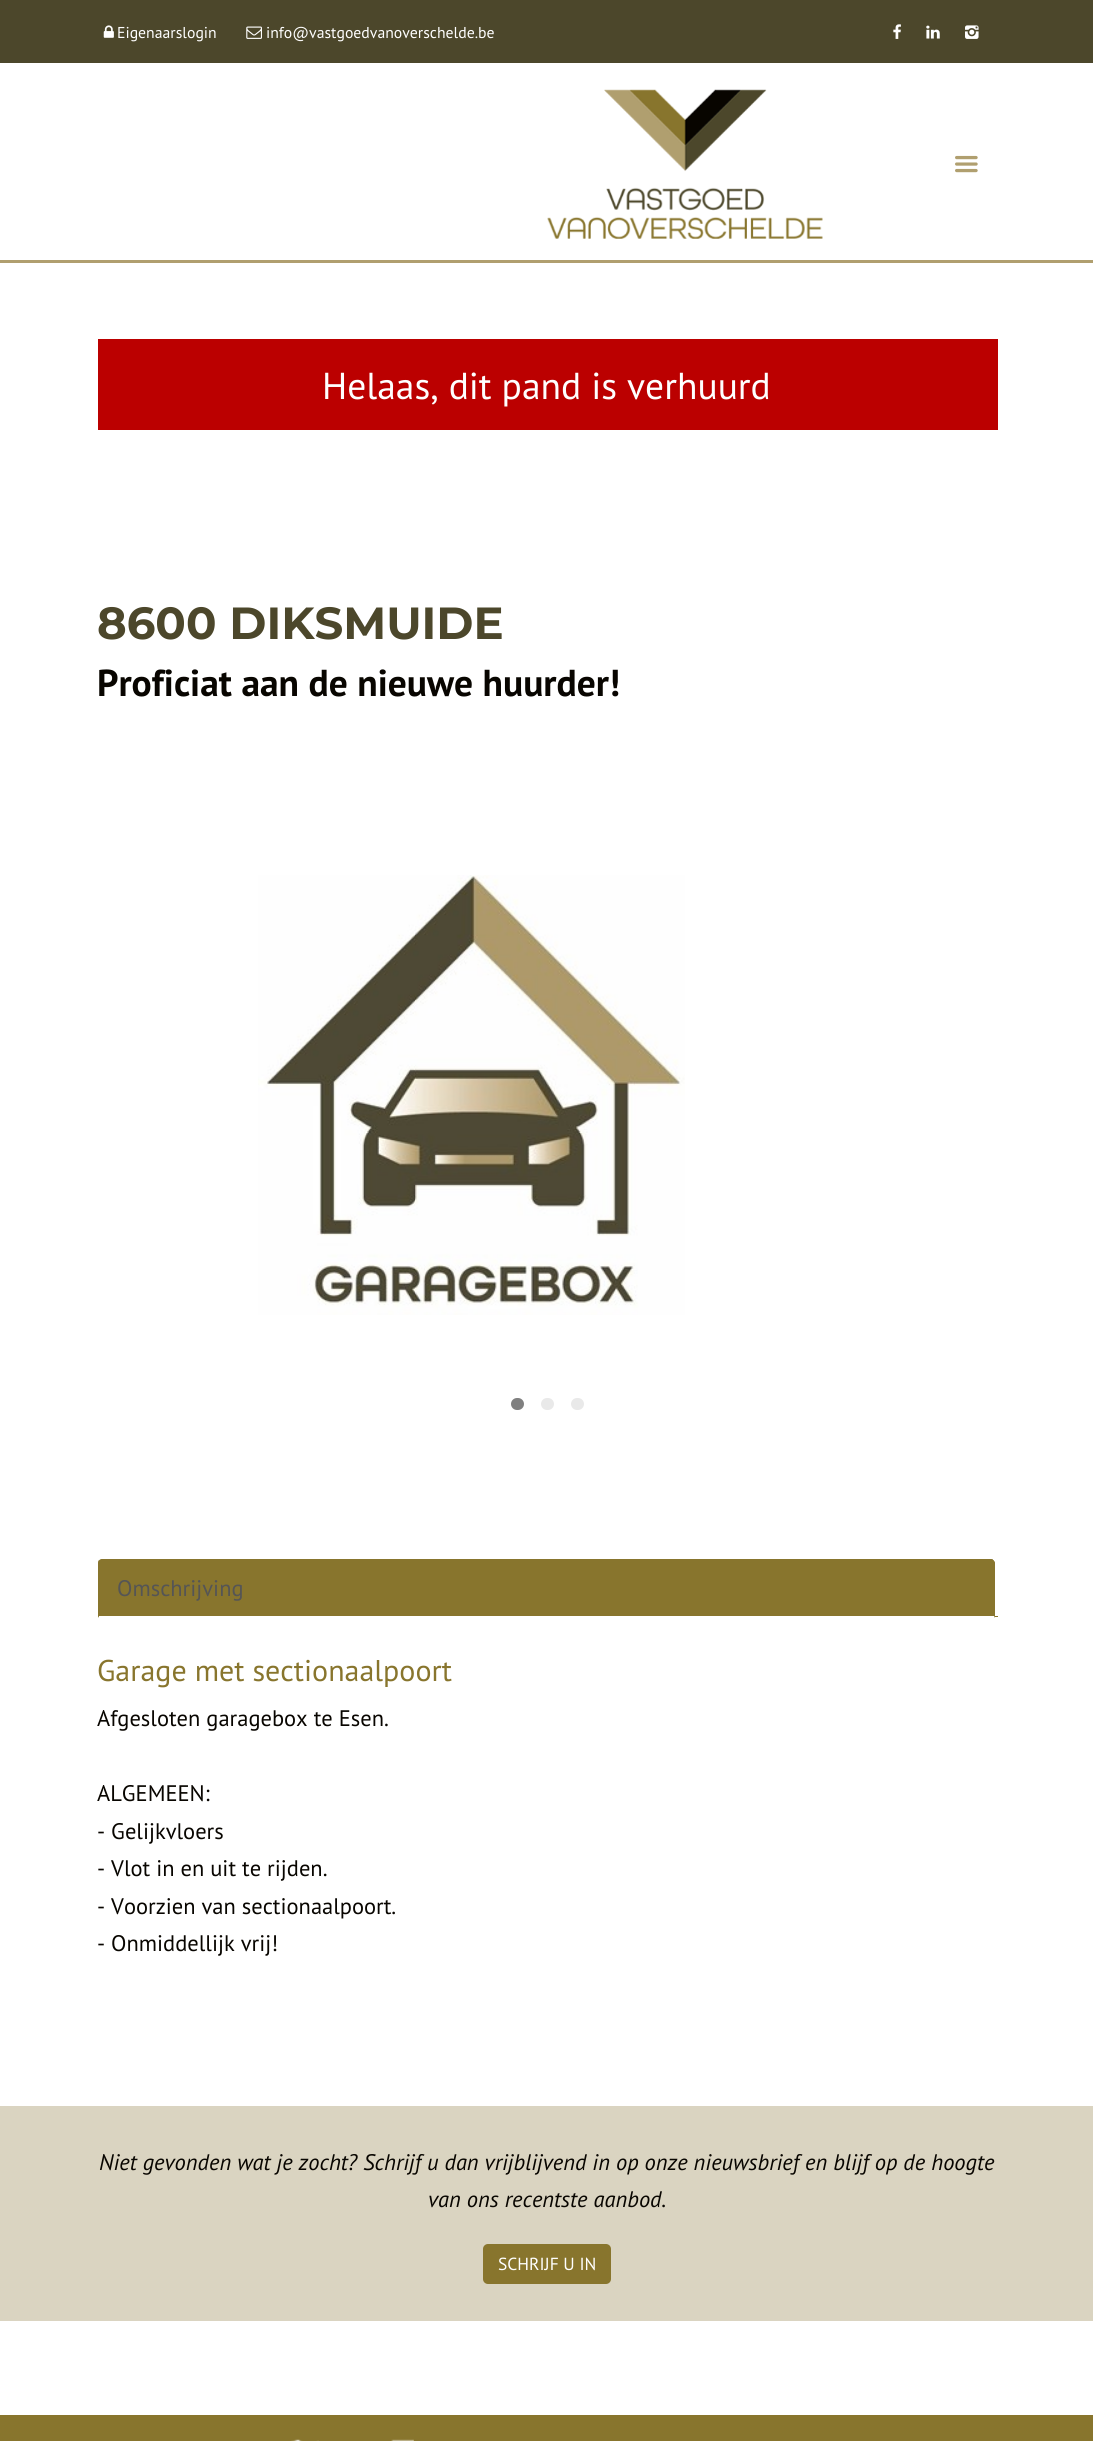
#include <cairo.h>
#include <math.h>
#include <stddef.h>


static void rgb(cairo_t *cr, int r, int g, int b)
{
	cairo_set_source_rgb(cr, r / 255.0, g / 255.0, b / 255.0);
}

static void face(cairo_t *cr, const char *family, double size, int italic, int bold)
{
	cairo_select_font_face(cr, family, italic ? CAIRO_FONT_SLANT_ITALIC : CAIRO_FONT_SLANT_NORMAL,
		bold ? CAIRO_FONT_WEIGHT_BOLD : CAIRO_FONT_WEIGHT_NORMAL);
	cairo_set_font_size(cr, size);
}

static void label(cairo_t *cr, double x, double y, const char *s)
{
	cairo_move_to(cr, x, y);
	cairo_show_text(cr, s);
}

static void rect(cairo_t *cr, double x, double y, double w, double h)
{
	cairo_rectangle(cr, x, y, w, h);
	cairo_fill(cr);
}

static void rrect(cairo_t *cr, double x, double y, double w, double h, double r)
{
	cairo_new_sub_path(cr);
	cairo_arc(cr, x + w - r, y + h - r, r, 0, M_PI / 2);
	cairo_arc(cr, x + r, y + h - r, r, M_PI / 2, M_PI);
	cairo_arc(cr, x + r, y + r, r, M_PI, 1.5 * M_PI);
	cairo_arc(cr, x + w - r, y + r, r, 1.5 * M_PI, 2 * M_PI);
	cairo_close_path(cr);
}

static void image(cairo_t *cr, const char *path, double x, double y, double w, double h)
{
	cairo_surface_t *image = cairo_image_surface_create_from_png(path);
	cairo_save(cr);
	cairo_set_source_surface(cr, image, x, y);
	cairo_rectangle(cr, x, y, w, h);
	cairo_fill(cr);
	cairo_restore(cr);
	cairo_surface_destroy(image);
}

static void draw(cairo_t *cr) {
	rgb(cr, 255, 255, 255);
	cairo_paint(cr);
	rgb(cr, 76, 71, 43);
	rect(cr, 0, 0, 1093, 63);
	image(cr, "image0.png", 103, 25, 11, 13);
	face(cr, "PT Sans", 15.75, 0, 0);
	rgb(cr, 255, 255, 255);
	label(cr, 117, 38, "Eigenaarslogin");
	image(cr, "image1.png", 246, 26, 16, 13);
	label(cr, 266, 38, "info@vastgoedvanoverschelde.be");
	image(cr, "image2.png", 893, 24, 8, 15);
	image(cr, "image3.png", 926, 25, 14, 14);
	image(cr, "image4.png", 965, 25, 14, 14);
	rgb(cr, 176, 159, 111);
	rect(cr, 0, 260, 1093, 3);
	image(cr, "image5.png", 547, 89, 276, 150);
	image(cr, "image6.png", 955, 155, 23, 18);
	rgb(cr, 187, 0, 0);
	rect(cr, 98, 339, 900, 91);
	face(cr, "PT Sans", 37.5, 0, 0);
	rgb(cr, 255, 255, 255);
	label(cr, 322, 399, "Helaas, dit pand is verhuurd");
	face(cr, "Montserrat", 45, 0, 1);
	rgb(cr, 76, 71, 43);
	label(cr, 97, 639, "8600 DIKSMUIDE");
	face(cr, "PT Sans", 37.5, 0, 1);
	rgb(cr, 8, 5, 0);
	label(cr, 97, 696, "Proficiat aan de nieuwe huurder!");
	image(cr, "image7.png", 258, 875, 427, 440);
	rgb(cr, 128, 128, 128);
	rrect(cr, 511, 1398, 13, 12, 6);
	cairo_fill(cr);
	rgb(cr, 233, 233, 233);
	rrect(cr, 541, 1398, 13, 12, 6);
	cairo_fill(cr);
	rrect(cr, 571, 1398, 13, 12, 6);
	cairo_fill(cr);
	rgb(cr, 136, 117, 45);
	rect(cr, 995, 1616, 3, 1);
	cairo_new_path(cr);
	cairo_move_to(cr, 103, 1559);
	cairo_line_to(cr, 990, 1559);
	cairo_curve_to(cr, 993, 1559, 995, 1561, 995, 1564);
	cairo_line_to(cr, 995, 1618);
	cairo_line_to(cr, 98, 1618);
	cairo_line_to(cr, 98, 1564);
	cairo_curve_to(cr, 98, 1561, 100, 1559, 103, 1559);
	cairo_close_path(cr);
	cairo_fill(cr);
	cairo_new_path(cr);
	cairo_move_to(cr, 102, 1559);
	cairo_curve_to(cr, 101, 1559, 100, 1560, 99, 1560);
	cairo_line_to(cr, 100, 1561);
	cairo_line_to(cr, 102, 1560);
	cairo_line_to(cr, 990, 1560);
	cairo_line_to(cr, 993, 1561);
	cairo_line_to(cr, 993, 1560);
	cairo_curve_to(cr, 993, 1559, 991, 1559, 990, 1559);
	cairo_close_path(cr);
	cairo_fill(cr);
	cairo_new_path(cr);
	cairo_move_to(cr, 993, 1560);
	cairo_curve_to(cr, 994, 1561, 995, 1562, 995, 1564);
	cairo_line_to(cr, 995, 1618);
	cairo_line_to(cr, 994, 1616);
	cairo_line_to(cr, 994, 1564);
	cairo_line_to(cr, 993, 1561);
	cairo_close_path(cr);
	cairo_fill(cr);
	rgb(cr, 255, 255, 255);
	cairo_new_path(cr);
	cairo_move_to(cr, 995, 1618);
	cairo_line_to(cr, 98, 1618);
	cairo_line_to(cr, 99, 1616);
	cairo_line_to(cr, 994, 1616);
	cairo_close_path(cr);
	cairo_fill(cr);
	rgb(cr, 136, 117, 45);
	cairo_new_path(cr);
	cairo_move_to(cr, 99, 1560);
	cairo_curve_to(cr, 98, 1561, 98, 1563, 98, 1564);
	cairo_line_to(cr, 98, 1617);
	cairo_line_to(cr, 99, 1616);
	cairo_line_to(cr, 99, 1564);
	cairo_line_to(cr, 100, 1561);
	cairo_close_path(cr);
	cairo_fill(cr);
	face(cr, "PT Sans", 22.5, 0, 0);
	rgb(cr, 85, 85, 85);
	label(cr, 117, 1596, "Omschrijving");
	face(cr, "PT Sans", 30, 0, 0);
	rgb(cr, 136, 117, 45);
	label(cr, 97, 1681, "Garage met sectionaalpoort");
	face(cr, "PT Sans", 22.5, 0, 0);
	rgb(cr, 8, 5, 0);
	label(cr, 97, 1726, "Afgesloten garagebox te Esen.");
	label(cr, 97, 1801, "ALGEMEEN:");
	label(cr, 97, 1839, "- Gelijkvloers");
	label(cr, 97, 1876, "- Vlot in en uit te rijden.");
	label(cr, 97, 1914, "- Voorzien van sectionaalpoort.");
	label(cr, 97, 1951, "- Onmiddellijk vrij!");
	rgb(cr, 218, 212, 193);
	rect(cr, 0, 2106, 1093, 215);
	face(cr, "PT Sans", 22.5, 1, 0);
	rgb(cr, 8, 5, 0);
	label(cr, 99, 2170, "Niet gevonden wat je zocht? Schrijf u dan vrijblijvend in op onze nieuwsbrief en blijf op de hoogte");
	label(cr, 428, 2207, "van ons recentste aanbod.");
	rgb(cr, 136, 117, 45);
	rrect(cr, 483, 2244, 128, 40, 5);
	cairo_fill(cr);
	face(cr, "PT Sans", 17.5, 0, 0);
	rgb(cr, 255, 255, 255);
	label(cr, 498, 2270, "SCHRIJF U IN");
	rgb(cr, 136, 117, 45);
	rect(cr, 0, 2415, 1093, 26);
	image(cr, "image8.png", 291, 2439, 28, 2);
	image(cr, "image9.png", 391, 2439, 23, 2);
}

int main(void) {
	cairo_surface_t *surface = cairo_image_surface_create(CAIRO_FORMAT_RGB24, 1093, 2441);
	cairo_t *cr = cairo_create(surface);
	cairo_font_options_t *options = cairo_font_options_create();
	cairo_font_options_set_hint_metrics(options, CAIRO_HINT_METRICS_OFF);
	cairo_font_options_set_hint_style(options, CAIRO_HINT_STYLE_NONE);
	cairo_set_font_options(cr, options);
	cairo_set_miter_limit(cr, 4);
	draw(cr);
	cairo_surface_write_to_png(surface, "render.png");
	cairo_font_options_destroy(options);
	cairo_destroy(cr);
	cairo_surface_destroy(surface);
	return 0;
}
